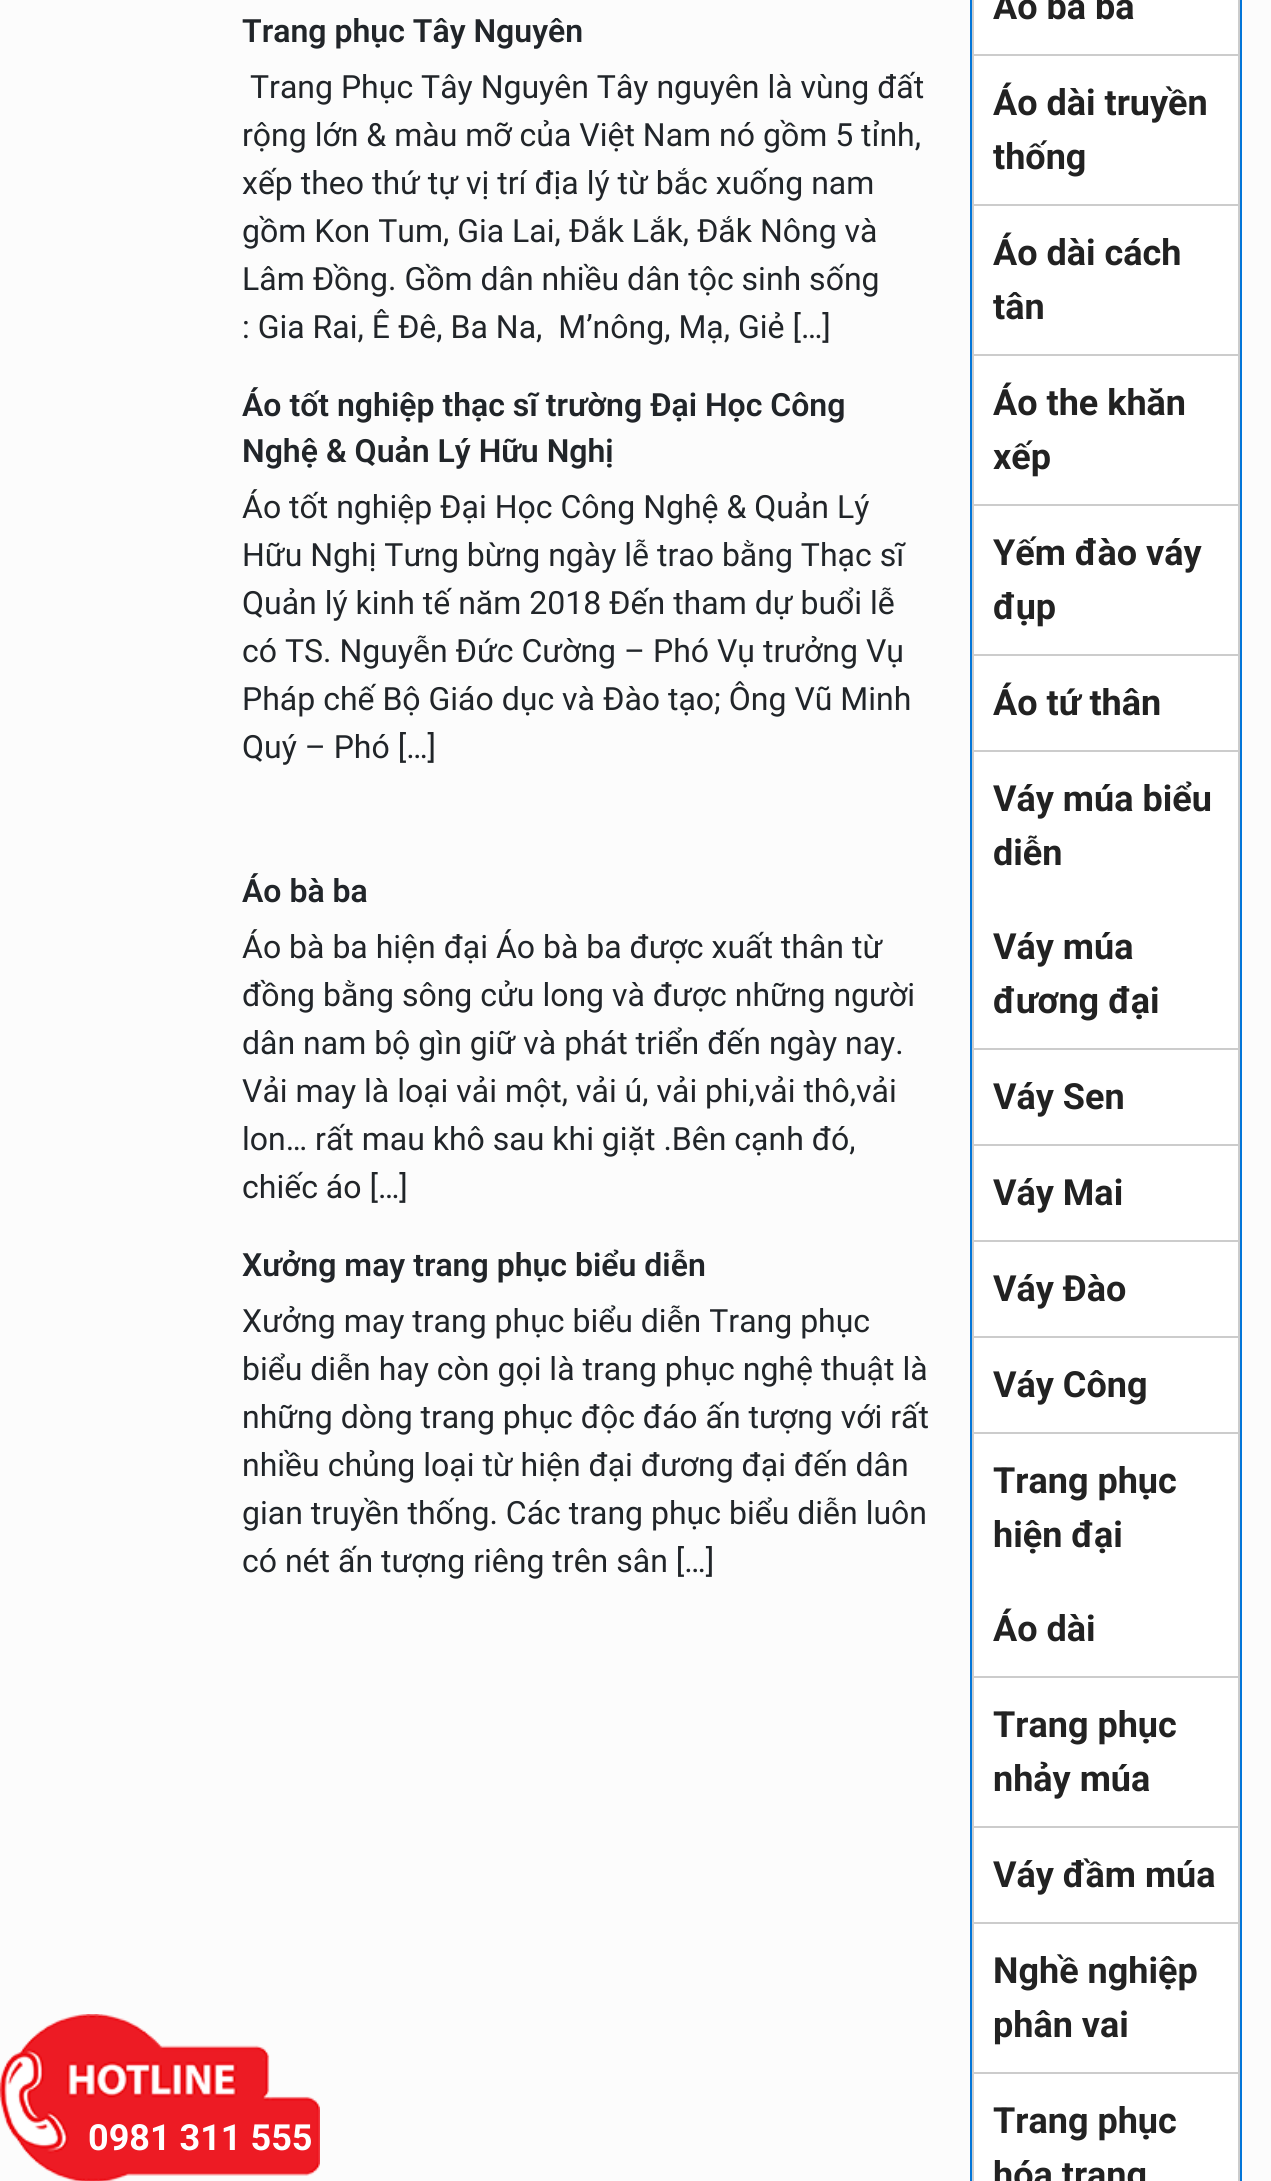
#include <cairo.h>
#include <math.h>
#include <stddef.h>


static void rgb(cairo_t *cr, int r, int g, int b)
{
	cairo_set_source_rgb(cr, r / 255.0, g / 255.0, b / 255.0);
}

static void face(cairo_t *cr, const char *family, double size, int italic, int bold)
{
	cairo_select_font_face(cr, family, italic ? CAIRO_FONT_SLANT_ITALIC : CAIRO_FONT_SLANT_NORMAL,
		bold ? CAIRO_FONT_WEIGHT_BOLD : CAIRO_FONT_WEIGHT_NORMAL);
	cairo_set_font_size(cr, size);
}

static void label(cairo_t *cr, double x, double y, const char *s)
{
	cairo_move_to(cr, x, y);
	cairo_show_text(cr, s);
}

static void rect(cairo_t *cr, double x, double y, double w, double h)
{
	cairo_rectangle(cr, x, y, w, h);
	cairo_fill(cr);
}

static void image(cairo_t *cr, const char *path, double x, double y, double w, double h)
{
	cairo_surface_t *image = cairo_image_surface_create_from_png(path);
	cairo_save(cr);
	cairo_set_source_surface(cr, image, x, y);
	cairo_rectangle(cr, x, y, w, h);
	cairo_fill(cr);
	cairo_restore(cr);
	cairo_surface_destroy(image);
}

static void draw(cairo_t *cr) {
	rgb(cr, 252, 252, 252);
	cairo_paint(cr);
	image(cr, "image0.png", 0, 2014, 320, 167);
	face(cr, "Roboto", 36, 0, 1);
	rgb(cr, 255, 255, 255);
	label(cr, 88, 2150, "0981 311 555");
	face(cr, "Roboto SemiBold", 32, 0, 0);
	rgb(cr, 33, 37, 41);
	label(cr, 242, 42, "Trang phục Tây Nguyên");
	face(cr, "Roboto", 32, 0, 0);
	label(cr, 250, 98, "Trang Phục Tây Nguyên Tây nguyên là vùng đất");
	label(cr, 242, 146, "rộng lớn & màu mỡ của Việt Nam nó gồm 5 tỉnh,");
	label(cr, 242, 194, "xếp theo thứ tự vị trí địa lý từ bắc xuống nam");
	label(cr, 242, 242, "gồm Kon Tum, Gia Lai, Đắk Lắk, Đắk Nông và");
	label(cr, 242, 290, "Lâm Đồng. Gồm dân nhiều dân tộc sinh sống");
	label(cr, 242, 338, ": Gia Rai, Ê Đê, Ba Na,  M’nông, Mạ, Giẻ […]");
	face(cr, "Roboto SemiBold", 32, 0, 0);
	label(cr, 242, 416, "Áo tốt nghiệp thạc sĩ trường Đại Học Công");
	label(cr, 242, 462, "Nghệ & Quản Lý Hữu Nghị");
	face(cr, "Roboto", 32, 0, 0);
	label(cr, 242, 518, "Áo tốt nghiệp Đại Học Công Nghệ & Quản Lý");
	label(cr, 242, 566, "Hữu Nghị Tưng bừng ngày lễ trao bằng Thạc sĩ");
	label(cr, 242, 614, "Quản lý kinh tế năm 2018 Đến tham dự buổi lễ");
	label(cr, 242, 662, "có TS. Nguyễn Đức Cường – Phó Vụ trưởng Vụ");
	label(cr, 242, 710, "Pháp chế Bộ Giáo dục và Đào tạo; Ông Vũ Minh");
	label(cr, 242, 758, "Quý – Phó […]");
	face(cr, "Roboto SemiBold", 32, 0, 0);
	label(cr, 242, 902, "Áo bà ba");
	face(cr, "Roboto", 32, 0, 0);
	label(cr, 242, 958, "Áo bà ba hiện đại Áo bà ba được xuất thân từ");
	label(cr, 242, 1006, "đồng bằng sông cửu long và được những người");
	label(cr, 242, 1054, "dân nam bộ gìn giữ và phát triển đến ngày nay.");
	label(cr, 242, 1102, "Vải may là loại vải một, vải ú, vải phi,vải thô,vải");
	label(cr, 242, 1150, "lon… rất mau khô sau khi giặt .Bên cạnh đó,");
	label(cr, 242, 1198, "chiếc áo […]");
	face(cr, "Roboto SemiBold", 32, 0, 0);
	label(cr, 242, 1276, "Xưởng may trang phục biểu diễn");
	face(cr, "Roboto", 32, 0, 0);
	label(cr, 242, 1332, "Xưởng may trang phục biểu diễn Trang phục");
	label(cr, 242, 1380, "biểu diễn hay còn gọi là trang phục nghệ thuật là");
	label(cr, 242, 1428, "những dòng trang phục độc đáo ấn tượng với rất");
	label(cr, 242, 1476, "nhiều chủng loại từ hiện đại đương đại đến dân");
	label(cr, 242, 1524, "gian truyền thống. Các trang phục biểu diễn luôn");
	label(cr, 242, 1572, "có nét ấn tượng riêng trên sân […]");
	cairo_rectangle(cr, 971, -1, 270, 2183);
	rgb(cr, 2, 117, 216);
	cairo_stroke(cr);
	cairo_rectangle(cr, 973, -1, 266, 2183);
	rgb(cr, 204, 204, 204);
	cairo_stroke(cr);
	rgb(cr, 255, 255, 255);
	rect(cr, 974, 0, 264, 2181);
	rgb(cr, 204, 204, 204);
	rect(cr, 974, 750, 264, 2);
	rect(cr, 974, 54, 264, 2);
	face(cr, "Roboto", 36, 0, 1);
	rgb(cr, 34, 34, 34);
	label(cr, 993, 19, "Áo bà ba");
	rgb(cr, 204, 204, 204);
	rect(cr, 974, 204, 264, 2);
	rgb(cr, 34, 34, 34);
	label(cr, 993, 115, "Áo dài truyền");
	label(cr, 993, 169, "thống");
	rgb(cr, 204, 204, 204);
	rect(cr, 974, 354, 264, 2);
	rgb(cr, 34, 34, 34);
	label(cr, 993, 265, "Áo dài cách");
	label(cr, 993, 319, "tân");
	rgb(cr, 204, 204, 204);
	rect(cr, 974, 504, 264, 2);
	rgb(cr, 34, 34, 34);
	label(cr, 993, 415, "Áo the khăn");
	label(cr, 993, 469, "xếp");
	rgb(cr, 204, 204, 204);
	rect(cr, 974, 654, 264, 2);
	rgb(cr, 34, 34, 34);
	label(cr, 993, 565, "Yếm đào váy");
	label(cr, 993, 619, "đụp");
	label(cr, 993, 715, "Áo tứ thân");
	rgb(cr, 204, 204, 204);
	rect(cr, 974, 1432, 264, 2);
	rgb(cr, 34, 34, 34);
	label(cr, 993, 811, "Váy múa biểu");
	label(cr, 993, 865, "diễn");
	rgb(cr, 204, 204, 204);
	rect(cr, 974, 1048, 264, 2);
	rgb(cr, 34, 34, 34);
	label(cr, 993, 959, "Váy múa");
	label(cr, 993, 1013, "đương đại");
	rgb(cr, 204, 204, 204);
	rect(cr, 974, 1144, 264, 2);
	rgb(cr, 34, 34, 34);
	label(cr, 993, 1109, "Váy Sen");
	rgb(cr, 204, 204, 204);
	rect(cr, 974, 1240, 264, 2);
	rgb(cr, 34, 34, 34);
	label(cr, 993, 1205, "Váy Mai");
	rgb(cr, 204, 204, 204);
	rect(cr, 974, 1336, 264, 2);
	rgb(cr, 34, 34, 34);
	label(cr, 993, 1301, "Váy Đào");
	label(cr, 993, 1397, "Váy Công");
	rgb(cr, 204, 204, 204);
	rect(cr, 974, 1922, 264, 2);
	rgb(cr, 34, 34, 34);
	label(cr, 993, 1493, "Trang phục");
	label(cr, 993, 1547, "hiện đại");
	rgb(cr, 204, 204, 204);
	rect(cr, 974, 1676, 264, 2);
	rgb(cr, 34, 34, 34);
	label(cr, 993, 1641, "Áo dài");
	rgb(cr, 204, 204, 204);
	rect(cr, 974, 1826, 264, 2);
	rgb(cr, 34, 34, 34);
	label(cr, 993, 1737, "Trang phục");
	label(cr, 993, 1791, "nhảy múa");
	label(cr, 993, 1887, "Váy đầm múa");
	rgb(cr, 204, 204, 204);
	rect(cr, 974, 2072, 264, 2);
	rgb(cr, 34, 34, 34);
	label(cr, 993, 1983, "Nghề nghiệp");
	label(cr, 993, 2037, "phân vai");
	label(cr, 993, 2133, "Trang phục");
	label(cr, 993, 2187, "hóa trang");
}

int main(void) {
	cairo_surface_t *surface = cairo_image_surface_create(CAIRO_FORMAT_RGB24, 1271, 2181);
	cairo_t *cr = cairo_create(surface);
	cairo_font_options_t *options = cairo_font_options_create();
	cairo_font_options_set_hint_metrics(options, CAIRO_HINT_METRICS_OFF);
	cairo_font_options_set_hint_style(options, CAIRO_HINT_STYLE_NONE);
	cairo_set_font_options(cr, options);
	cairo_set_miter_limit(cr, 4);
	draw(cr);
	cairo_surface_write_to_png(surface, "render.png");
	cairo_font_options_destroy(options);
	cairo_destroy(cr);
	cairo_surface_destroy(surface);
	return 0;
}
